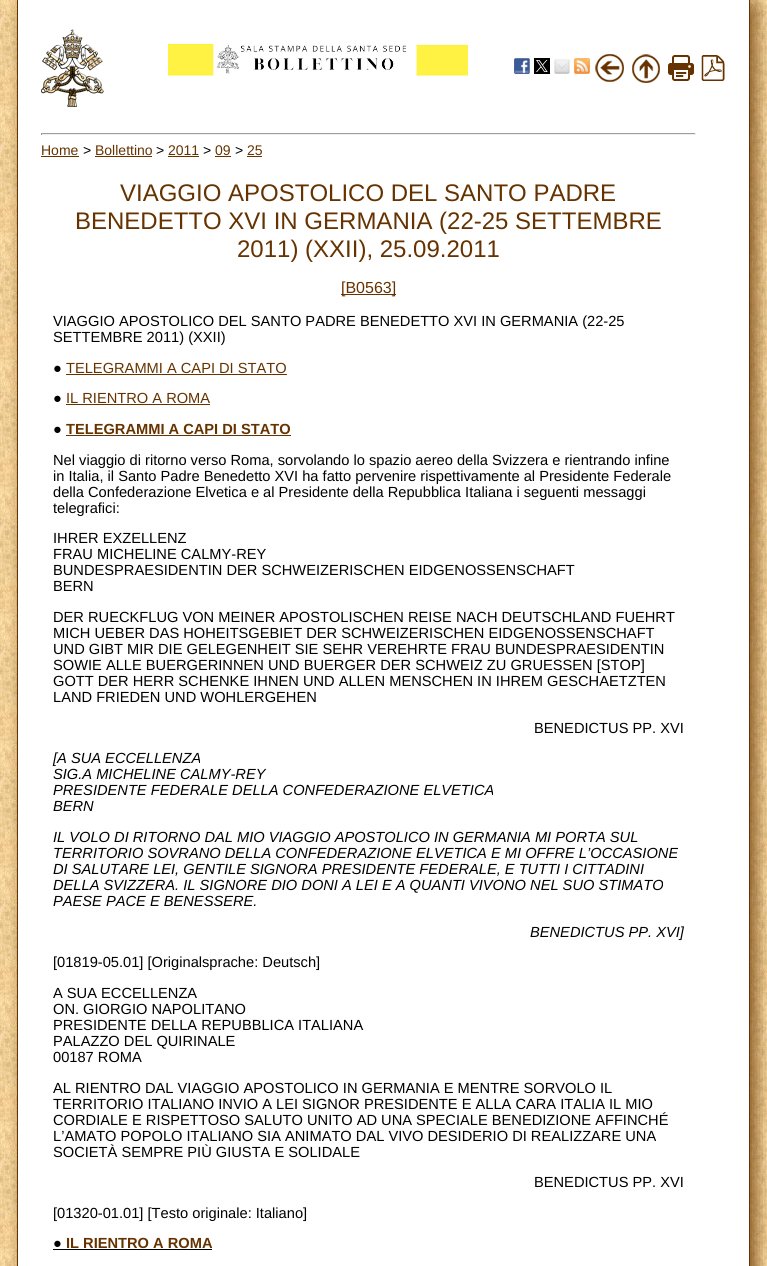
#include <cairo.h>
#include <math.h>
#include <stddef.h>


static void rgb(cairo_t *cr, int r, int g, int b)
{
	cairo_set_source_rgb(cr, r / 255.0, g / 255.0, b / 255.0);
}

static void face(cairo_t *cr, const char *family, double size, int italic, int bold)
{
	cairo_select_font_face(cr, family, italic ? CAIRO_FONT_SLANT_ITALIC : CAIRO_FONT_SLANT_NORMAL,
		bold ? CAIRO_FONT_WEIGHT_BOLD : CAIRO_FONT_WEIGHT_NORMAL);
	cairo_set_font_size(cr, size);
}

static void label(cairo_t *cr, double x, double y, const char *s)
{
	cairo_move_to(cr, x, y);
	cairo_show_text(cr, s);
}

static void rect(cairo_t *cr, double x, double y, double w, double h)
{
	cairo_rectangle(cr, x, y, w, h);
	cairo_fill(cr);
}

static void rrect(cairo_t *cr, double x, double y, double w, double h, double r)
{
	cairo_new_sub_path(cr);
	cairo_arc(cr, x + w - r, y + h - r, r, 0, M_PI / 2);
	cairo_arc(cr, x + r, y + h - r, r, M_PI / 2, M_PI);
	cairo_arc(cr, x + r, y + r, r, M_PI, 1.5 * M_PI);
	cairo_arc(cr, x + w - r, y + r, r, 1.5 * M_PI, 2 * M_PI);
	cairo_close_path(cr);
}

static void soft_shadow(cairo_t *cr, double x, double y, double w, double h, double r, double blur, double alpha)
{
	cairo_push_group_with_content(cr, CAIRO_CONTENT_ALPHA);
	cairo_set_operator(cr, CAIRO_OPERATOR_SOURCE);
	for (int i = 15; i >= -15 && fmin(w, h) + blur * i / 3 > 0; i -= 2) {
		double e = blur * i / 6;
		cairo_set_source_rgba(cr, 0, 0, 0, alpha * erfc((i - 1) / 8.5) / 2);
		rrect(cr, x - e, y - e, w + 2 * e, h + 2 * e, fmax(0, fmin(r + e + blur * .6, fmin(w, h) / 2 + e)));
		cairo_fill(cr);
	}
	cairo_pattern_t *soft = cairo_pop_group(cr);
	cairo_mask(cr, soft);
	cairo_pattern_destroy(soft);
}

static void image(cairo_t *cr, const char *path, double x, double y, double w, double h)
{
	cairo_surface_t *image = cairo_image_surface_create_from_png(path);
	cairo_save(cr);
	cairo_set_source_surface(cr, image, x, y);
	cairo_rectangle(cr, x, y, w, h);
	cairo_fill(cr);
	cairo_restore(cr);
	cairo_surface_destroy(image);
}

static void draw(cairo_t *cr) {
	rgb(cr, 255, 255, 255);
	cairo_paint(cr);
	image(cr, "image0.png", 0, 0, 767, 1266);
	rgb(cr, 102, 51, 0);
	soft_shadow(cr, 23, 0, 733, 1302, 10, 8.5, 0.8);
	rgb(cr, 255, 255, 255);
	cairo_rectangle(cr, 17.5, -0.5, 732, 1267);
	cairo_fill_preserve(cr);
	rgb(cr, 102, 51, 0);
	cairo_set_line_width(cr, 1);
	cairo_stroke(cr);
	image(cr, "image1.png", 41, 29, 63, 78);
	image(cr, "image2.png", 168, 43, 300, 34);
	image(cr, "image3.png", 514, 58, 16, 16);
	image(cr, "image4.png", 534, 58, 16, 16);
	image(cr, "image5.png", 554, 59, 16, 15);
	image(cr, "image6.png", 574, 58, 16, 16);
	image(cr, "image7.png", 595, 54, 29, 28);
	image(cr, "image8.png", 632, 54, 28, 29);
	image(cr, "image9.png", 668, 55, 26, 26);
	image(cr, "image10.png", 701, 55, 24, 26);
	rgb(cr, 159, 159, 159);
	rect(cr, 41, 133, 655, 1);
	rgb(cr, 238, 238, 238);
	rect(cr, 695, 133, 1, 2);
	rect(cr, 41, 134, 655, 1);
	rgb(cr, 159, 159, 159);
	rect(cr, 41, 133, 1, 2);
	face(cr, "Liberation Sans", 14, 0, 0);
	rgb(cr, 102, 51, 0);
	label(cr, 41, 155, "Home");
	rect(cr, 41, 156, 38, 1);
	rgb(cr, 0, 0, 0);
	label(cr, 83, 155, ">");
	rgb(cr, 102, 51, 0);
	label(cr, 95, 155, "Bollettino");
	rect(cr, 95, 156, 57, 1);
	rgb(cr, 0, 0, 0);
	label(cr, 156, 155, ">");
	rgb(cr, 102, 51, 0);
	label(cr, 168, 155, "2011");
	rect(cr, 168, 156, 31, 1);
	rgb(cr, 0, 0, 0);
	label(cr, 203, 155, ">");
	rgb(cr, 102, 51, 0);
	label(cr, 215, 155, "09");
	rect(cr, 215, 156, 16, 1);
	rgb(cr, 0, 0, 0);
	label(cr, 235, 155, ">");
	rgb(cr, 102, 51, 0);
	label(cr, 247, 155, "25");
	rect(cr, 247, 156, 15, 1);
	face(cr, "Liberation Sans", 24, 0, 0);
	label(cr, 120, 201, "VIAGGIO APOSTOLICO DEL SANTO PADRE");
	label(cr, 75, 229, "BENEDETTO XVI IN GERMANIA (22-25 SETTEMBRE");
	label(cr, 237, 257, "2011) (XXII), 25.09.2011");
	rect(cr, 341, 294, 55, 1);
	face(cr, "Liberation Sans", 16, 0, 0);
	label(cr, 341, 293, "[B0563]");
	face(cr, "Liberation Sans", 14.65, 0, 0);
	rgb(cr, 0, 0, 0);
	label(cr, 53, 326, "VIAGGIO APOSTOLICO DEL SANTO PADRE BENEDETTO XVI IN GERMANIA (22-25");
	label(cr, 53, 342, "SETTEMBRE 2011) (XXII)");
	label(cr, 53, 373, "●");
	rgb(cr, 102, 51, 0);
	label(cr, 66, 373, "TELEGRAMMI A CAPI DI STATO");
	rect(cr, 66, 374, 221, 1);
	rgb(cr, 0, 0, 0);
	label(cr, 53, 403, "●");
	rgb(cr, 102, 51, 0);
	label(cr, 66, 403, "IL RIENTRO A ROMA");
	rect(cr, 66, 404, 144, 1);
	rgb(cr, 0, 0, 0);
	label(cr, 53, 434, "●");
	face(cr, "Liberation Sans", 14.65, 0, 1);
	rgb(cr, 102, 51, 0);
	label(cr, 66, 434, "TELEGRAMMI A CAPI DI STATO");
	rect(cr, 66, 435, 225, 1);
	face(cr, "Liberation Sans", 14.65, 0, 0);
	rgb(cr, 0, 0, 0);
	label(cr, 53, 465, "Nel viaggio di ritorno verso Roma, sorvolando lo spazio aereo della Svizzera e rientrando infine");
	label(cr, 53, 481, "in Italia, il Santo Padre Benedetto XVI ha fatto pervenire rispettivamente al Presidente Federale");
	label(cr, 53, 497, "della Confederazione Elvetica e al Presidente della Repubblica Italiana i seguenti messaggi");
	label(cr, 53, 513, "telegrafici:");
	label(cr, 53, 543, "IHRER EXZELLENZ");
	label(cr, 53, 559, "FRAU MICHELINE CALMY-REY");
	label(cr, 53, 575, "BUNDESPRAESIDENTIN DER SCHWEIZERISCHEN EIDGENOSSENSCHAFT");
	label(cr, 53, 591, "BERN");
	label(cr, 53, 622, "DER RUECKFLUG VON MEINER APOSTOLISCHEN REISE NACH DEUTSCHLAND FUEHRT");
	label(cr, 53, 638, "MICH UEBER DAS HOHEITSGEBIET DER SCHWEIZERISCHEN EIDGENOSSENSCHAFT");
	label(cr, 53, 654, "UND GIBT MIR DIE GELEGENHEIT SIE SEHR VEREHRTE FRAU BUNDESPRAESIDENTIN");
	label(cr, 53, 670, "SOWIE ALLE BUERGERINNEN UND BUERGER DER SCHWEIZ ZU GRUESSEN [STOP]");
	label(cr, 53, 686, "GOTT DER HERR SCHENKE IHNEN UND ALLEN MENSCHEN IN IHREM GESCHAETZTEN");
	label(cr, 53, 702, "LAND FRIEDEN UND WOHLERGEHEN");
	label(cr, 534, 733, "BENEDICTUS PP. XVI");
	face(cr, "Liberation Sans", 14.65, 1, 0);
	label(cr, 53, 763, "[A SUA ECCELLENZA");
	label(cr, 53, 779, "SIG.A MICHELINE CALMY-REY");
	label(cr, 53, 795, "PRESIDENTE FEDERALE DELLA CONFEDERAZIONE ELVETICA");
	label(cr, 53, 811, "BERN");
	label(cr, 53, 842, "IL VOLO DI RITORNO DAL MIO VIAGGIO APOSTOLICO IN GERMANIA MI PORTA SUL");
	label(cr, 53, 858, "TERRITORIO SOVRANO DELLA CONFEDERAZIONE ELVETICA E MI OFFRE L’OCCASIONE");
	label(cr, 53, 874, "DI SALUTARE LEI, GENTILE SIGNORA PRESIDENTE FEDERALE, E TUTTI I CITTADINI");
	label(cr, 53, 890, "DELLA SVIZZERA. IL SIGNORE DIO DONI A LEI E A QUANTI VIVONO NEL SUO STIMATO");
	label(cr, 53, 906, "PAESE PACE E BENESSERE.");
	label(cr, 530, 937, "BENEDICTUS PP. XVI]");
	face(cr, "Liberation Sans", 14.65, 0, 0);
	label(cr, 53, 967, "[01819-05.01] [Originalsprache: Deutsch]");
	label(cr, 53, 998, "A SUA ECCELLENZA");
	label(cr, 53, 1014, "ON. GIORGIO NAPOLITANO");
	label(cr, 53, 1030, "PRESIDENTE DELLA REPUBBLICA ITALIANA");
	label(cr, 53, 1046, "PALAZZO DEL QUIRINALE");
	label(cr, 53, 1062, "00187 ROMA");
	label(cr, 53, 1093, "AL RIENTRO DAL VIAGGIO APOSTOLICO IN GERMANIA E MENTRE SORVOLO IL");
	label(cr, 53, 1109, "TERRITORIO ITALIANO INVIO A LEI SIGNOR PRESIDENTE E ALLA CARA ITALIA IL MIO");
	label(cr, 53, 1125, "CORDIALE E RISPETTOSO SALUTO UNITO AD UNA SPECIALE BENEDIZIONE AFFINCHÉ");
	label(cr, 53, 1141, "L’AMATO POPOLO ITALIANO SIA ANIMATO DAL VIVO DESIDERIO DI REALIZZARE UNA");
	label(cr, 53, 1157, "SOCIETÀ SEMPRE PIÙ GIUSTA E SOLIDALE");
	label(cr, 534, 1187, "BENEDICTUS PP. XVI");
	label(cr, 53, 1218, "[01320-01.01] [Testo originale: Italiano]");
	face(cr, "Liberation Sans", 14.65, 0, 1);
	label(cr, 53, 1248, "●");
	rect(cr, 53, 1249, 159, 1);
	rgb(cr, 102, 51, 0);
	label(cr, 66, 1248, "IL RIENTRO A ROMA");
}

int main(void) {
	cairo_surface_t *surface = cairo_image_surface_create(CAIRO_FORMAT_RGB24, 767, 1266);
	cairo_t *cr = cairo_create(surface);
	cairo_font_options_t *options = cairo_font_options_create();
	cairo_font_options_set_hint_metrics(options, CAIRO_HINT_METRICS_OFF);
	cairo_font_options_set_hint_style(options, CAIRO_HINT_STYLE_NONE);
	cairo_set_font_options(cr, options);
	cairo_set_miter_limit(cr, 4);
	draw(cr);
	cairo_surface_write_to_png(surface, "render.png");
	cairo_font_options_destroy(options);
	cairo_destroy(cr);
	cairo_surface_destroy(surface);
	return 0;
}
